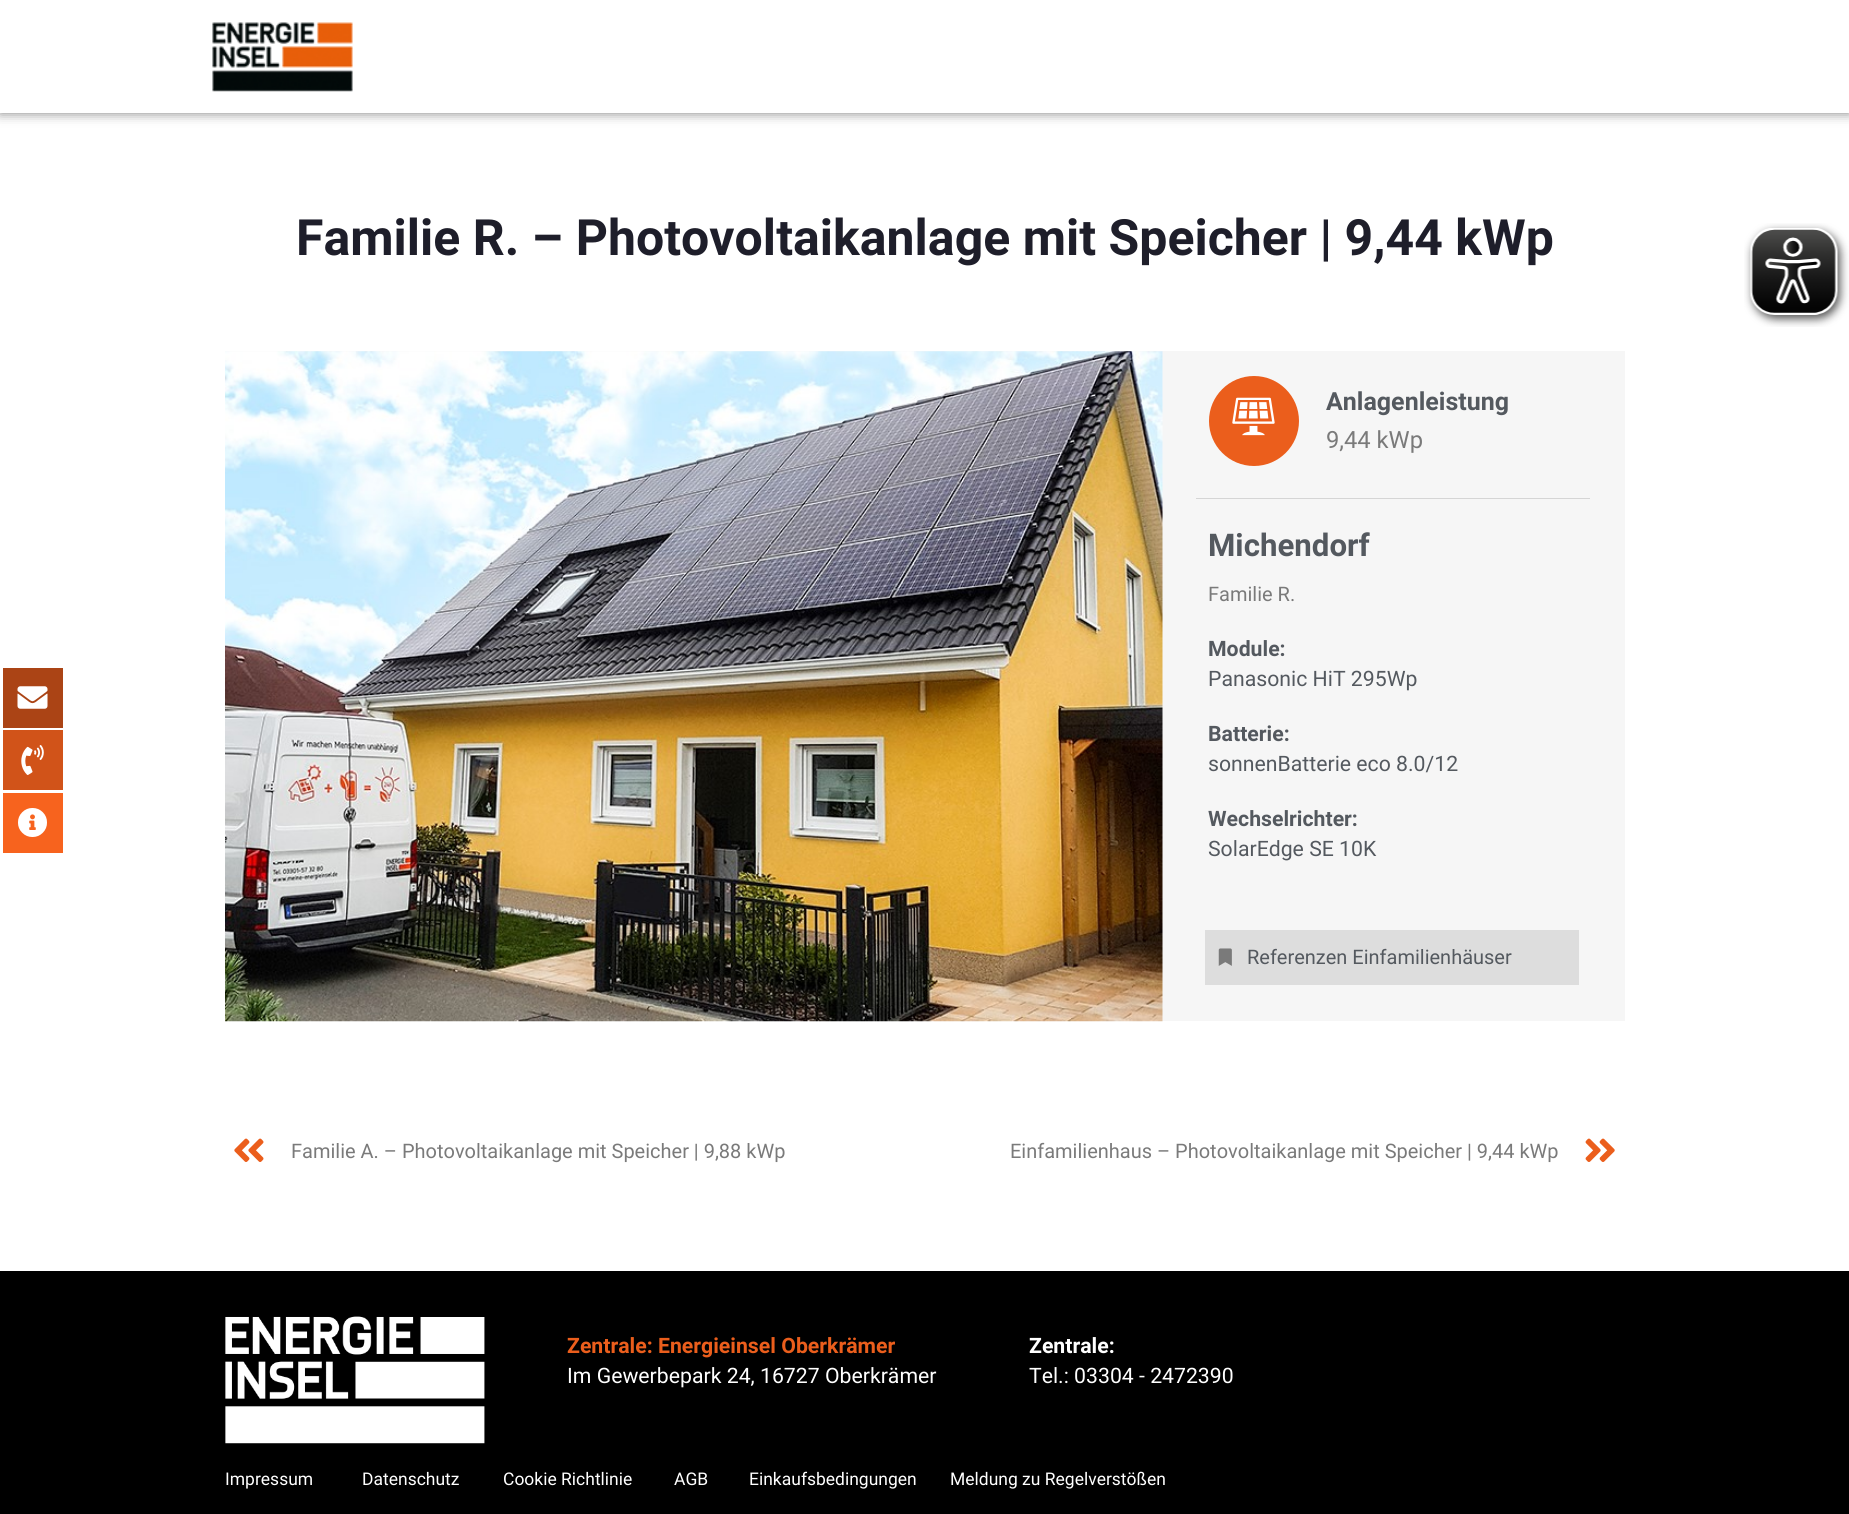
#include <cairo.h>
#include <math.h>
#include <stddef.h>


static void rgb(cairo_t *cr, int r, int g, int b)
{
	cairo_set_source_rgb(cr, r / 255.0, g / 255.0, b / 255.0);
}

static void face(cairo_t *cr, const char *family, double size, int italic, int bold)
{
	cairo_select_font_face(cr, family, italic ? CAIRO_FONT_SLANT_ITALIC : CAIRO_FONT_SLANT_NORMAL,
		bold ? CAIRO_FONT_WEIGHT_BOLD : CAIRO_FONT_WEIGHT_NORMAL);
	cairo_set_font_size(cr, size);
}

static void label(cairo_t *cr, double x, double y, const char *s)
{
	cairo_move_to(cr, x, y);
	cairo_show_text(cr, s);
}

static void rect(cairo_t *cr, double x, double y, double w, double h)
{
	cairo_rectangle(cr, x, y, w, h);
	cairo_fill(cr);
}

static void rrect(cairo_t *cr, double x, double y, double w, double h, double r)
{
	cairo_new_sub_path(cr);
	cairo_arc(cr, x + w - r, y + h - r, r, 0, M_PI / 2);
	cairo_arc(cr, x + r, y + h - r, r, M_PI / 2, M_PI);
	cairo_arc(cr, x + r, y + r, r, M_PI, 1.5 * M_PI);
	cairo_arc(cr, x + w - r, y + r, r, 1.5 * M_PI, 2 * M_PI);
	cairo_close_path(cr);
}

static void soft_shadow(cairo_t *cr, double x, double y, double w, double h, double r, double blur, double alpha)
{
	cairo_push_group_with_content(cr, CAIRO_CONTENT_ALPHA);
	cairo_set_operator(cr, CAIRO_OPERATOR_SOURCE);
	for (int i = 15; i >= -15 && fmin(w, h) + blur * i / 3 > 0; i -= 2) {
		double e = blur * i / 6;
		cairo_set_source_rgba(cr, 0, 0, 0, alpha * erfc((i - 1) / 8.5) / 2);
		rrect(cr, x - e, y - e, w + 2 * e, h + 2 * e, fmax(0, fmin(r + e + blur * .6, fmin(w, h) / 2 + e)));
		cairo_fill(cr);
	}
	cairo_pattern_t *soft = cairo_pop_group(cr);
	cairo_mask(cr, soft);
	cairo_pattern_destroy(soft);
}

static void image(cairo_t *cr, const char *path, double x, double y, double w, double h)
{
	cairo_surface_t *image = cairo_image_surface_create_from_png(path);
	cairo_save(cr);
	cairo_set_source_surface(cr, image, x, y);
	cairo_rectangle(cr, x, y, w, h);
	cairo_fill(cr);
	cairo_restore(cr);
	cairo_surface_destroy(image);
}

static void draw(cairo_t *cr) {
	rgb(cr, 255, 255, 255);
	cairo_paint(cr);
	rgb(cr, 0, 0, 0);
	soft_shadow(cr, 0, 0, 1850, 113, 0, 6, 0.5);
	rgb(cr, 255, 255, 255);
	rect(cr, 0, 0, 1849, 113);
	image(cr, "image0.png", 212, 22, 141, 70);
	face(cr, "Roboto", 50, 0, 1);
	rgb(cr, 30, 30, 42);
	label(cr, 296, 255, "Familie R. – Photovoltaikanlage mit Speicher | 9,44 kWp");
	rgb(cr, 246, 246, 246);
	rect(cr, 225, 351, 1400, 670);
	image(cr, "image1.png", 225, 351, 938, 671);
	rgb(cr, 235, 94, 28);
	cairo_arc(cr, 1254, 421, 45, 0, 2 * M_PI);
	cairo_fill(cr);
	image(cr, "image2.png", 1232, 397, 43, 39);
	face(cr, "Roboto", 25, 0, 1);
	rgb(cr, 84, 89, 95);
	label(cr, 1326, 410, "Anlagenleistung");
	face(cr, "Roboto", 23.75, 0, 0);
	rgb(cr, 122, 122, 122);
	label(cr, 1326, 448, "9,44 kWp");
	rgb(cr, 213, 213, 213);
	rect(cr, 1196, 498, 394, 1);
	face(cr, "Roboto", 31.25, 0, 1);
	rgb(cr, 84, 89, 95);
	label(cr, 1208, 556, "Michendorf");
	face(cr, "Roboto", 20, 0, 0);
	rgb(cr, 122, 122, 122);
	label(cr, 1208, 601, "Familie R.");
	face(cr, "Roboto", 21.25, 0, 1);
	rgb(cr, 84, 89, 95);
	label(cr, 1208, 656, "Module:");
	face(cr, "Roboto", 21.25, 0, 0);
	label(cr, 1208, 686, "Panasonic HiT 295Wp");
	face(cr, "Roboto", 21.25, 0, 1);
	label(cr, 1208, 741, "Batterie:");
	face(cr, "Roboto", 21.25, 0, 0);
	label(cr, 1208, 771, "sonnenBatterie eco 8.0/12");
	face(cr, "Roboto", 21.25, 0, 1);
	label(cr, 1208, 826, "Wechselrichter:");
	face(cr, "Roboto", 21.25, 0, 0);
	label(cr, 1208, 856, "SolarEdge SE 10K");
	rgb(cr, 221, 221, 221);
	rect(cr, 1205, 930, 374, 55);
	image(cr, "image3.png", 1218, 948, 14, 18);
	face(cr, "Roboto", 20, 0, 0);
	rgb(cr, 84, 89, 95);
	label(cr, 1247, 964, "Referenzen Einfamilienhäuser");
	image(cr, "image4.png", 234, 1138, 30, 24);
	rgb(cr, 122, 122, 122);
	label(cr, 291, 1158, "Familie A. – Photovoltaikanlage mit Speicher | 9,88 kWp");
	label(cr, 1010, 1158, "Einfamilienhaus – Photovoltaikanlage mit Speicher | 9,44 kWp");
	image(cr, "image5.png", 1585, 1138, 30, 24);
	image(cr, "image6.png", 1744, 223, 105, 104);
	rgb(cr, 171, 68, 21);
	rect(cr, 3, 668, 60, 60);
	image(cr, "image7.png", 17, 686, 31, 23);
	rgb(cr, 209, 83, 25);
	rect(cr, 3, 730, 60, 60);
	image(cr, "image8.png", 21, 745, 23, 30);
	rgb(cr, 247, 99, 30);
	rect(cr, 3, 793, 60, 60);
	image(cr, "image9.png", 18, 808, 29, 29);
	rgb(cr, 0, 0, 0);
	rect(cr, 0, 1271, 1849, 243);
	image(cr, "image10.png", 225, 1316, 260, 128);
	face(cr, "Roboto", 21.25, 0, 1);
	rgb(cr, 235, 94, 28);
	label(cr, 567, 1353, "Zentrale: Energieinsel Oberkrämer");
	face(cr, "Roboto", 21.25, 0, 0);
	rgb(cr, 255, 255, 255);
	label(cr, 567, 1383, "Im Gewerbepark 24, 16727 Oberkrämer");
	face(cr, "Roboto", 21.25, 0, 1);
	label(cr, 1029, 1353, "Zentrale:");
	face(cr, "Roboto", 21.25, 0, 0);
	label(cr, 1029, 1383, "Tel.: 03304 - 2472390");
	face(cr, "Roboto", 17.5, 0, 0);
	label(cr, 225, 1485, "Impressum");
	label(cr, 362, 1485, "Datenschutz");
	label(cr, 503, 1485, "Cookie Richtlinie");
	label(cr, 674, 1485, "AGB");
	label(cr, 749, 1485, "Einkaufsbedingungen");
	label(cr, 950, 1485, "Meldung zu Regelverstößen");
}

int main(void) {
	cairo_surface_t *surface = cairo_image_surface_create(CAIRO_FORMAT_RGB24, 1849, 1514);
	cairo_t *cr = cairo_create(surface);
	cairo_font_options_t *options = cairo_font_options_create();
	cairo_font_options_set_hint_metrics(options, CAIRO_HINT_METRICS_OFF);
	cairo_font_options_set_hint_style(options, CAIRO_HINT_STYLE_NONE);
	cairo_set_font_options(cr, options);
	cairo_set_miter_limit(cr, 4);
	draw(cr);
	cairo_surface_write_to_png(surface, "render.png");
	cairo_font_options_destroy(options);
	cairo_destroy(cr);
	cairo_surface_destroy(surface);
	return 0;
}
